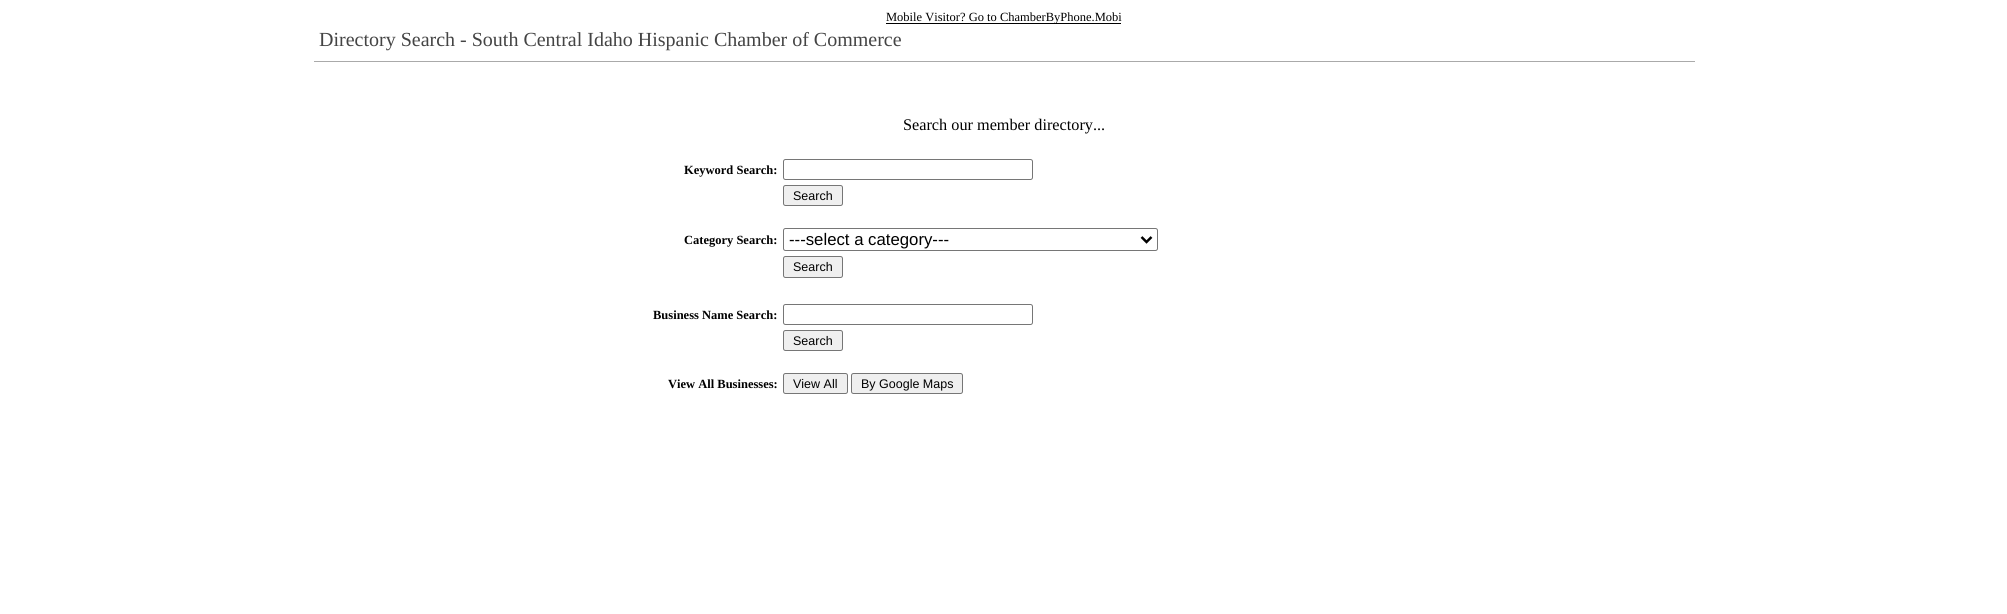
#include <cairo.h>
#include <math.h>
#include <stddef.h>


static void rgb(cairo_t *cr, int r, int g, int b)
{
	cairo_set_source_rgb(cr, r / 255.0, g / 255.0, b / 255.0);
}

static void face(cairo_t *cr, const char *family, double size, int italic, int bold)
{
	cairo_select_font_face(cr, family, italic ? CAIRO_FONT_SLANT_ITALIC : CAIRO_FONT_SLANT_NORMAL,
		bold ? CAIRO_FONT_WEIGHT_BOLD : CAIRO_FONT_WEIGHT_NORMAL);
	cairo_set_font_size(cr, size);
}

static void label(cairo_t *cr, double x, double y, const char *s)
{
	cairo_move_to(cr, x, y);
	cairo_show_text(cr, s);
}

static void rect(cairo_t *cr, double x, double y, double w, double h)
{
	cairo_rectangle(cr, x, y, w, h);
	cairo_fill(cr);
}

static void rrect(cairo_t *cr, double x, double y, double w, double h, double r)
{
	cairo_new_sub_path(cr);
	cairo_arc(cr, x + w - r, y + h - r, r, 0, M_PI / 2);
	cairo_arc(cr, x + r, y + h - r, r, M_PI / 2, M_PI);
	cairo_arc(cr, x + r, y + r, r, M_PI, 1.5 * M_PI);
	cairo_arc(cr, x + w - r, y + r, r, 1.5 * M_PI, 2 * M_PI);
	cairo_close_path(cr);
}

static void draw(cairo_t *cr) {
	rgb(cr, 255, 255, 255);
	cairo_paint(cr);
	rgb(cr, 0, 0, 0);
	rect(cr, 886, 23, 235, 1);
	face(cr, "Liberation Serif", 12.5, 0, 0);
	label(cr, 886, 21, "Mobile Visitor? Go to ChamberByPhone.Mobi");
	rgb(cr, 170, 170, 170);
	rect(cr, 314, 61, 1381, 1);
	face(cr, "Liberation Serif", 20, 0, 0);
	rgb(cr, 68, 68, 68);
	label(cr, 319, 46, "Directory Search - South Central Idaho Hispanic Chamber of Commerce");
	face(cr, "Liberation Serif", 16.25, 0, 0);
	rgb(cr, 0, 0, 0);
	label(cr, 903, 130, "Search our member directory...");
	face(cr, "Liberation Serif", 12.5, 0, 1);
	label(cr, 684, 174, "Keyword Search:");
	rrect(cr, 783.5, 159.5, 249, 20, 2);
	rgb(cr, 118, 118, 118);
	cairo_set_line_width(cr, 1);
	cairo_stroke(cr);
	rgb(cr, 239, 239, 239);
	rrect(cr, 783.5, 185.5, 59, 20, 2);
	cairo_fill_preserve(cr);
	rgb(cr, 118, 118, 118);
	cairo_stroke(cr);
	face(cr, "Liberation Sans", 12.5, 0, 0);
	rgb(cr, 0, 0, 0);
	label(cr, 793, 200, "Search");
	face(cr, "Liberation Serif", 12.5, 0, 1);
	label(cr, 684, 244, "Category Search:");
	rrect(cr, 783.5, 228.5, 374, 22, 2);
	rgb(cr, 118, 118, 118);
	cairo_stroke(cr);
	cairo_new_path(cr);
	cairo_move_to(cr, 1141.5, 237);
	cairo_line_to(cr, 1146.5, 242);
	cairo_line_to(cr, 1151.5, 237);
	rgb(cr, 0, 0, 0);
	cairo_set_line_width(cr, 2.5);
	cairo_stroke(cr);
	face(cr, "Liberation Sans", 16.75, 0, 0);
	label(cr, 789, 245, "---select a category---");
	rgb(cr, 239, 239, 239);
	rrect(cr, 783.5, 256.5, 59, 21, 2);
	cairo_fill_preserve(cr);
	rgb(cr, 118, 118, 118);
	cairo_set_line_width(cr, 1);
	cairo_stroke(cr);
	face(cr, "Liberation Sans", 12.5, 0, 0);
	rgb(cr, 0, 0, 0);
	label(cr, 793, 271, "Search");
	face(cr, "Liberation Serif", 12.5, 0, 1);
	label(cr, 653, 319, "Business Name Search:");
	rrect(cr, 783.5, 304.5, 249, 20, 2);
	rgb(cr, 118, 118, 118);
	cairo_stroke(cr);
	rgb(cr, 239, 239, 239);
	rrect(cr, 783.5, 330.5, 59, 20, 2);
	cairo_fill_preserve(cr);
	rgb(cr, 118, 118, 118);
	cairo_stroke(cr);
	face(cr, "Liberation Sans", 12.5, 0, 0);
	rgb(cr, 0, 0, 0);
	label(cr, 793, 345, "Search");
	face(cr, "Liberation Serif", 12.5, 0, 1);
	label(cr, 668, 388, "View All Businesses:");
	rgb(cr, 239, 239, 239);
	rrect(cr, 783.5, 373.5, 64, 20, 2);
	cairo_fill_preserve(cr);
	rgb(cr, 118, 118, 118);
	cairo_stroke(cr);
	face(cr, "Liberation Sans", 12.5, 0, 0);
	rgb(cr, 0, 0, 0);
	label(cr, 793, 388, "View All");
	rgb(cr, 239, 239, 239);
	rrect(cr, 851.5, 373.5, 111, 20, 2);
	cairo_fill_preserve(cr);
	rgb(cr, 118, 118, 118);
	cairo_stroke(cr);
	rgb(cr, 0, 0, 0);
	label(cr, 861, 388, "By Google Maps");
}

int main(void) {
	cairo_surface_t *surface = cairo_image_surface_create(CAIRO_FORMAT_RGB24, 2007, 614);
	cairo_t *cr = cairo_create(surface);
	cairo_font_options_t *options = cairo_font_options_create();
	cairo_font_options_set_hint_metrics(options, CAIRO_HINT_METRICS_OFF);
	cairo_font_options_set_hint_style(options, CAIRO_HINT_STYLE_NONE);
	cairo_set_font_options(cr, options);
	cairo_set_miter_limit(cr, 4);
	draw(cr);
	cairo_surface_write_to_png(surface, "render.png");
	cairo_font_options_destroy(options);
	cairo_destroy(cr);
	cairo_surface_destroy(surface);
	return 0;
}
